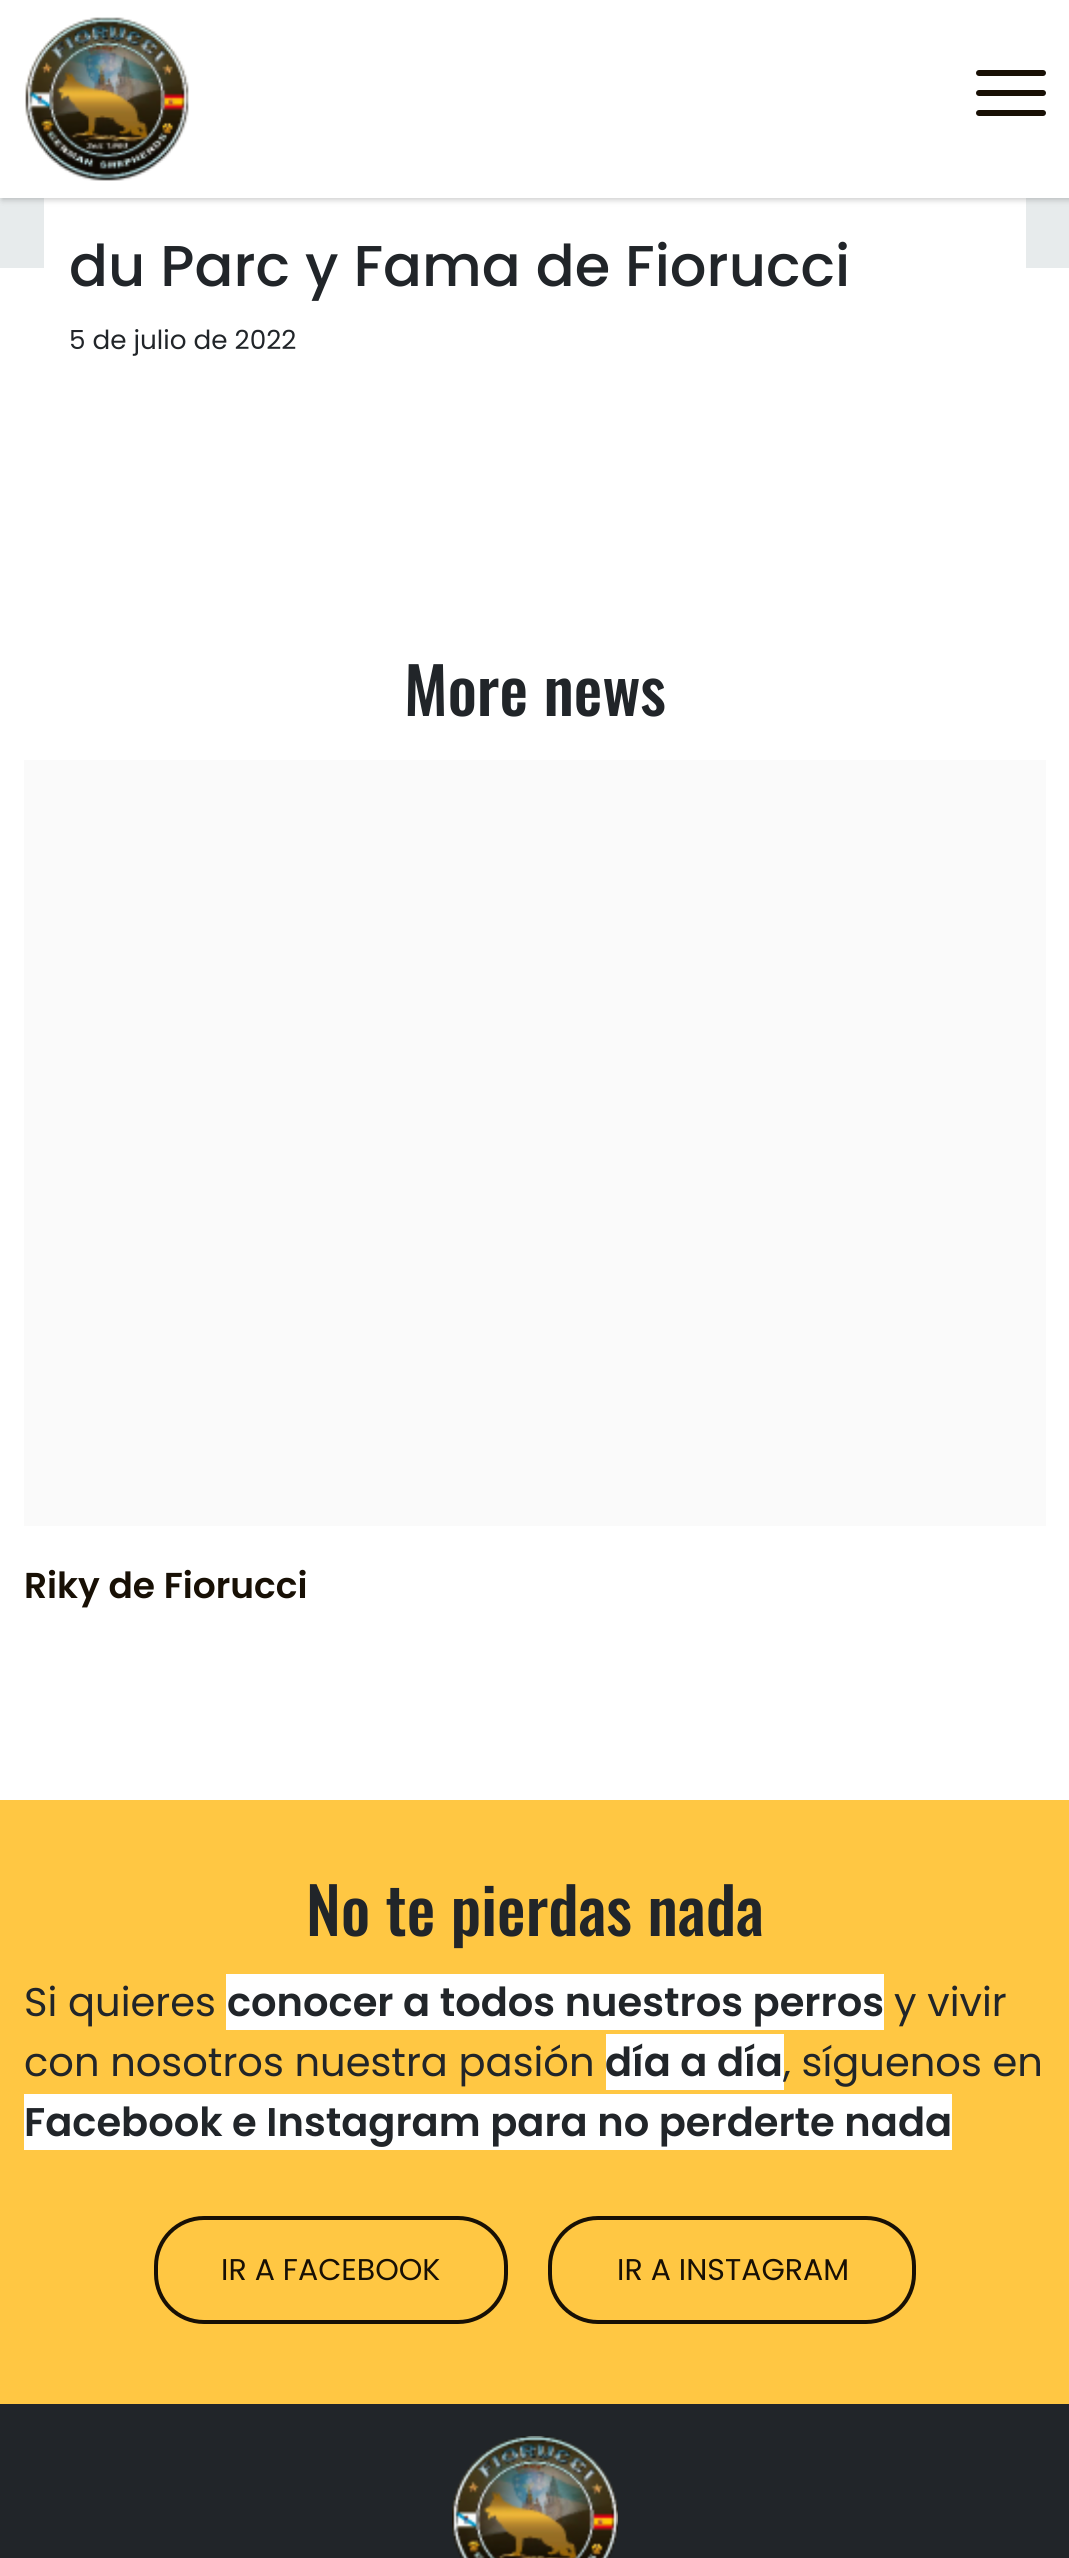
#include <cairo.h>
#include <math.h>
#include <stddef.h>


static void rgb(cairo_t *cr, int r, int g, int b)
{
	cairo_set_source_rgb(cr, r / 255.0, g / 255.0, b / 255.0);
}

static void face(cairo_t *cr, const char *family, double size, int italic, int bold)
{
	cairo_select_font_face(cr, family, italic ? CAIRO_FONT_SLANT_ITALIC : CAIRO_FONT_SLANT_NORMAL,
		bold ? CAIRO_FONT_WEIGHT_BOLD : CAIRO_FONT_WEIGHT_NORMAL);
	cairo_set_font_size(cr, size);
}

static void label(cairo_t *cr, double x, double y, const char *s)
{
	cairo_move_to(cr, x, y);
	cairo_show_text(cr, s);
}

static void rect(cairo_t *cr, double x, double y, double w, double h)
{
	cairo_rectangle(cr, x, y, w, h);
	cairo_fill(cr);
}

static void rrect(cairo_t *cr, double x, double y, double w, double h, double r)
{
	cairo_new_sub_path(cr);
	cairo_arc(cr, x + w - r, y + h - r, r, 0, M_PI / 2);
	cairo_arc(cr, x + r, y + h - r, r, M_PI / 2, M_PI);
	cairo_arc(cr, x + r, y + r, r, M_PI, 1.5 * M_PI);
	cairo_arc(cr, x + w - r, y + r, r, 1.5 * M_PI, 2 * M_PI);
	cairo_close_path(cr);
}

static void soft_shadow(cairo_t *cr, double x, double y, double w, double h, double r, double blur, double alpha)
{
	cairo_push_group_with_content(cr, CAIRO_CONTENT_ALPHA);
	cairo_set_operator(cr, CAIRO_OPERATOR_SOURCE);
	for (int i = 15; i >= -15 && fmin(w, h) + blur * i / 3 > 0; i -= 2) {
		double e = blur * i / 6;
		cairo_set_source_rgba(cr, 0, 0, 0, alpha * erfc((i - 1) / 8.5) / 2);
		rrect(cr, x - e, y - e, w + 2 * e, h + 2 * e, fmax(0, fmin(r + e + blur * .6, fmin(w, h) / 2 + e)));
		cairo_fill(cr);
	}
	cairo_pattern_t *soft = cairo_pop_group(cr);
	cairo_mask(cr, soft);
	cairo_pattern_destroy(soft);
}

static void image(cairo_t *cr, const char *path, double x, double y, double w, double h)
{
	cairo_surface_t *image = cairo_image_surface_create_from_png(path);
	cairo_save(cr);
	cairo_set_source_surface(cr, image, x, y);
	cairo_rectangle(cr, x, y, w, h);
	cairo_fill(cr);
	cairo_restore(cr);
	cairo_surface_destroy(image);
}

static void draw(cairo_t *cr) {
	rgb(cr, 255, 255, 255);
	cairo_paint(cr);
	image(cr, "image1.png", 0, 198, 1069, 70);
	rgb(cr, 255, 255, 255);
	rect(cr, 44, 198, 982, 70);
	rgb(cr, 0, 0, 0);
	soft_shadow(cr, 2, 2, 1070, 198, 0, 3, 0.2);
	rgb(cr, 255, 255, 255);
	rect(cr, 0, 0, 1069, 198);
	image(cr, "image0.png", 25, 17, 164, 164);
	rgb(cr, 24, 16, 5);
	rrect(cr, 976, 70, 70, 6, 3);
	cairo_fill(cr);
	rrect(cr, 976, 90, 70, 6, 3);
	cairo_fill(cr);
	rrect(cr, 976, 110, 70, 6, 3);
	cairo_fill(cr);
	face(cr, "Poppins Medium", 57.5, 0, 0);
	rgb(cr, 33, 37, 41);
	label(cr, 69, 286, "du Parc y Fama de Fiorucci");
	face(cr, "Poppins", 26.25, 0, 0);
	label(cr, 69, 349, "5 de julio de 2022");
	face(cr, "Oswald Medium", 64, 0, 0);
	label(cr, 404, 716, "More news");
	rgb(cr, 250, 250, 250);
	rect(cr, 24, 760, 1022, 766);
	face(cr, "Poppins SemiBold", 36, 0, 0);
	rgb(cr, 24, 16, 5);
	label(cr, 24, 1598, "Riky de Fiorucci");
	rgb(cr, 255, 199, 67);
	rect(cr, 0, 1800, 1069, 604);
	face(cr, "Oswald Medium", 64, 0, 0);
	rgb(cr, 33, 37, 41);
	label(cr, 306, 1936, "No te pierdas nada");
	face(cr, "Poppins", 40, 0, 0);
	label(cr, 24, 2016, "Si quieres");
	rgb(cr, 255, 255, 255);
	rect(cr, 226, 1974, 658, 56);
	face(cr, "Poppins SemiBold", 40, 0, 0);
	rgb(cr, 33, 37, 41);
	label(cr, 227, 2016, "conocer a todos nuestros perros");
	face(cr, "Poppins", 40, 0, 0);
	label(cr, 894, 2016, "y vivir");
	label(cr, 24, 2076, "con nosotros nuestra pasión");
	rgb(cr, 255, 255, 255);
	rect(cr, 606, 2034, 178, 56);
	face(cr, "Poppins SemiBold", 40, 0, 0);
	rgb(cr, 33, 37, 41);
	label(cr, 605, 2076, "día a día");
	face(cr, "Poppins", 40, 0, 0);
	label(cr, 783, 2076, ", síguenos en");
	rgb(cr, 255, 255, 255);
	rect(cr, 24, 2094, 928, 56);
	face(cr, "Poppins SemiBold", 40, 0, 0);
	rgb(cr, 33, 37, 41);
	label(cr, 24, 2136, "Facebook e Instagram para no perderte nada");
	rrect(cr, 156, 2218, 350, 104, 48);
	rgb(cr, 24, 16, 5);
	cairo_set_line_width(cr, 4);
	cairo_stroke(cr);
	face(cr, "Poppins", 30, 0, 0);
	label(cr, 221, 2280, "IR A FACEBOOK");
	rrect(cr, 550, 2218, 364, 104, 48);
	cairo_stroke(cr);
	label(cr, 617, 2280, "IR A INSTAGRAM");
	rgb(cr, 33, 37, 41);
	rect(cr, 0, 2404, 1069, 154);
	image(cr, "image2.png", 452, 2436, 166, 122);
}

int main(void) {
	cairo_surface_t *surface = cairo_image_surface_create(CAIRO_FORMAT_RGB24, 1069, 2558);
	cairo_t *cr = cairo_create(surface);
	cairo_font_options_t *options = cairo_font_options_create();
	cairo_font_options_set_hint_metrics(options, CAIRO_HINT_METRICS_OFF);
	cairo_font_options_set_hint_style(options, CAIRO_HINT_STYLE_NONE);
	cairo_set_font_options(cr, options);
	cairo_set_miter_limit(cr, 4);
	draw(cr);
	cairo_surface_write_to_png(surface, "render.png");
	cairo_font_options_destroy(options);
	cairo_destroy(cr);
	cairo_surface_destroy(surface);
	return 0;
}
